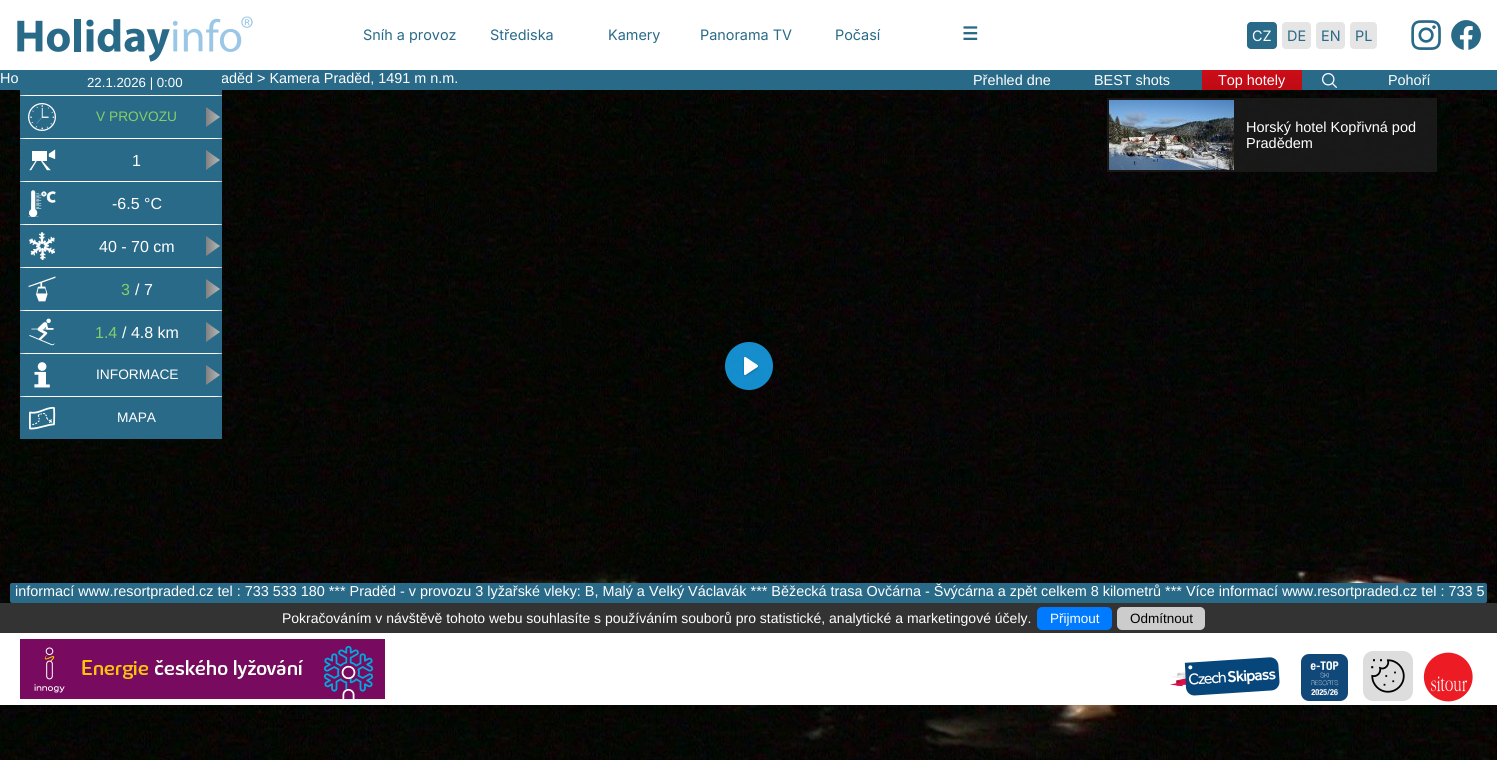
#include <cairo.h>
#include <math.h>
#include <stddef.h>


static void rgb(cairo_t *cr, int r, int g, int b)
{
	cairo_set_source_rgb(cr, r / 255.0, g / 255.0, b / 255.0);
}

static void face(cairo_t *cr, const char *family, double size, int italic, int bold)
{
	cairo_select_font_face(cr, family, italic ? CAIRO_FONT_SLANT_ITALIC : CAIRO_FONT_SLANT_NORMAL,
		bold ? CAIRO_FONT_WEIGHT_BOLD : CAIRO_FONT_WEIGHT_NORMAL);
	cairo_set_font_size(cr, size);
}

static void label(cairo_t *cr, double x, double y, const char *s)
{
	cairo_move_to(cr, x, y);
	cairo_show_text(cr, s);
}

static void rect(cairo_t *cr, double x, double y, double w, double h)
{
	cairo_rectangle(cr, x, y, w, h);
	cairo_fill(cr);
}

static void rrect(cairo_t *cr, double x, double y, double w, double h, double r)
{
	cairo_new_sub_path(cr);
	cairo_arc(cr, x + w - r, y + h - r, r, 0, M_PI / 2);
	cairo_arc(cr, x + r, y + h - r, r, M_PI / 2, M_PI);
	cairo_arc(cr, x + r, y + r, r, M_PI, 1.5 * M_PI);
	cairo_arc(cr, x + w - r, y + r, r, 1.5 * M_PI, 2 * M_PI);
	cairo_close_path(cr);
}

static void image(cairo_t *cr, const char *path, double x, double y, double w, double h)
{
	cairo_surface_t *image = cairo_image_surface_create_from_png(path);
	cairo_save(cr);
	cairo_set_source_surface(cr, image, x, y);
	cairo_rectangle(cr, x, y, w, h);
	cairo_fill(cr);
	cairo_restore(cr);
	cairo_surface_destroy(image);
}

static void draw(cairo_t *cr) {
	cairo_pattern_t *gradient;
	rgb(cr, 255, 255, 255);
	cairo_paint(cr);
	image(cr, "image0.png", 17, 16, 236, 46);
	face(cr, "Inter", 14.4, 0, 0);
	rgb(cr, 41, 106, 136);
	label(cr, 363, 40, "Sníh a provoz");
	label(cr, 490, 40, "Střediska");
	label(cr, 608, 40, "Kamery");
	label(cr, 700, 40, "Panorama TV");
	label(cr, 835, 40, "Počasí");
	face(cr, "DejaVu Sans", 18, 0, 1);
	label(cr, 962, 40, "☰");
	rrect(cr, 1247, 22, 30, 27, 4);
	cairo_fill(cr);
	face(cr, "Inter", 14.4, 0, 0);
	rgb(cr, 255, 255, 255);
	label(cr, 1252, 41, "CZ");
	rgb(cr, 229, 229, 229);
	rrect(cr, 1282, 22, 29, 27, 4);
	cairo_fill(cr);
	rgb(cr, 41, 106, 136);
	label(cr, 1287, 41, "DE");
	rgb(cr, 229, 229, 229);
	rrect(cr, 1316, 22, 29, 27, 4);
	cairo_fill(cr);
	rgb(cr, 41, 106, 136);
	label(cr, 1321, 41, "EN");
	rgb(cr, 229, 229, 229);
	rrect(cr, 1350, 22, 27, 27, 4);
	cairo_fill(cr);
	rgb(cr, 41, 106, 136);
	label(cr, 1355, 41, "PL");
	image(cr, "image1.png", 1411, 20, 30, 30);
	image(cr, "image2.png", 1451, 20, 30, 30);
	rect(cr, 0, 70, 1497, 20);
	face(cr, "Liberation Sans", 14.4, 0, 0);
	rgb(cr, 255, 255, 255);
	label(cr, 0, 83, "Ho");
	label(cr, 221, 83, "aděd > Kamera Praděd, 1491 m n.m.");
	label(cr, 973, 85, "Přehled dne");
	label(cr, 1094, 85, "BEST shots");
	gradient = cairo_pattern_create_linear(1252, 70, 1252, 90);
	cairo_pattern_add_color_stop_rgba(gradient, 0, 0.804, 0.051, 0.094, 1);
	cairo_pattern_add_color_stop_rgba(gradient, 1, 0.741, 0.043, 0.082, 1);
	cairo_set_source(cr, gradient);
	cairo_pattern_destroy(gradient);
	rect(cr, 1202, 70, 100, 20);
	rgb(cr, 255, 255, 255);
	label(cr, 1218, 85, "Top hotely");
	image(cr, "image3.png", 1322, 73, 15, 15);
	label(cr, 1388, 85, "Pohoří");
	image(cr, "image13.png", 0, 90, 1497, 670);
	cairo_set_source_rgba(cr, 0, 0, 0, 0.5);
	rect(cr, 1107, 98, 330, 74);
	cairo_set_source_rgba(cr, 0.125, 0.125, 0.125, 0.5);
	rect(cr, 1107, 98, 330, 74);
	rect(cr, 1107, 98, 330, 74);
	image(cr, "image4.png", 1109, 100, 125, 70);
	face(cr, "Liberation Sans", 14.5, 0, 0);
	rgb(cr, 255, 255, 255);
	label(cr, 1246, 132, "Horský hotel Kopřivná pod");
	label(cr, 1246, 148, "Pradědem");
	rgb(cr, 41, 106, 136);
	rect(cr, 20, 80, 202, 359);
	face(cr, "Liberation Sans", 13.25, 0, 0);
	rgb(cr, 255, 255, 255);
	label(cr, 87, 87, "22.1.2026 | 0:00");
	gradient = cairo_pattern_create_linear(20, 96, 222, 96);
	cairo_pattern_add_color_stop_rgba(gradient, 0, 0.753, 0.753, 0.753, 1);
	cairo_pattern_add_color_stop_rgba(gradient, 0.03, 1, 1, 1, 1);
	cairo_pattern_add_color_stop_rgba(gradient, 0.97, 1, 1, 1, 1);
	cairo_pattern_add_color_stop_rgba(gradient, 1, 0.753, 0.753, 0.753, 1);
	cairo_set_source(cr, gradient);
	cairo_pattern_destroy(gradient);
	rect(cr, 20, 95, 202, 1);
	gradient = cairo_pattern_create_linear(220, 307, 206, 307);
	cairo_pattern_add_color_stop_rgba(gradient, 0, 0.722, 0.722, 0.722, 1);
	cairo_pattern_add_color_stop_rgba(gradient, 1, 0.502, 0.502, 0.502, 1);
	cairo_set_source(cr, gradient);
	cairo_pattern_destroy(gradient);
	cairo_new_path(cr);
	cairo_move_to(cr, 206, 107);
	cairo_line_to(cr, 206, 127);
	cairo_line_to(cr, 220, 117);
	cairo_close_path(cr);
	cairo_fill(cr);
	image(cr, "image5.png", 28, 103, 28, 28);
	face(cr, "Liberation Sans", 13.75, 0, 0);
	rgb(cr, 132, 206, 105);
	label(cr, 96, 121, "V PROVOZU");
	gradient = cairo_pattern_create_linear(20, 139, 222, 139);
	cairo_pattern_add_color_stop_rgba(gradient, 0, 0.753, 0.753, 0.753, 1);
	cairo_pattern_add_color_stop_rgba(gradient, 0.03, 1, 1, 1, 1);
	cairo_pattern_add_color_stop_rgba(gradient, 0.97, 1, 1, 1, 1);
	cairo_pattern_add_color_stop_rgba(gradient, 1, 0.753, 0.753, 0.753, 1);
	cairo_set_source(cr, gradient);
	cairo_pattern_destroy(gradient);
	rect(cr, 20, 138, 202, 1);
	gradient = cairo_pattern_create_linear(220, 350, 206, 350);
	cairo_pattern_add_color_stop_rgba(gradient, 0, 0.722, 0.722, 0.722, 1);
	cairo_pattern_add_color_stop_rgba(gradient, 1, 0.502, 0.502, 0.502, 1);
	cairo_set_source(cr, gradient);
	cairo_pattern_destroy(gradient);
	cairo_new_path(cr);
	cairo_move_to(cr, 206, 150);
	cairo_line_to(cr, 206, 170);
	cairo_line_to(cr, 220, 160);
	cairo_close_path(cr);
	cairo_fill(cr);
	image(cr, "image6.png", 29, 149, 27, 22);
	face(cr, "Liberation Sans", 16, 0, 0);
	rgb(cr, 255, 255, 255);
	label(cr, 132, 166, "1");
	gradient = cairo_pattern_create_linear(20, 182, 222, 182);
	cairo_pattern_add_color_stop_rgba(gradient, 0, 0.753, 0.753, 0.753, 1);
	cairo_pattern_add_color_stop_rgba(gradient, 0.03, 1, 1, 1, 1);
	cairo_pattern_add_color_stop_rgba(gradient, 0.97, 1, 1, 1, 1);
	cairo_pattern_add_color_stop_rgba(gradient, 1, 0.753, 0.753, 0.753, 1);
	cairo_set_source(cr, gradient);
	cairo_pattern_destroy(gradient);
	rect(cr, 20, 181, 202, 1);
	image(cr, "image7.png", 28, 190, 28, 27);
	rgb(cr, 255, 255, 255);
	label(cr, 112, 209, "-6.5 °C");
	gradient = cairo_pattern_create_linear(20, 225, 222, 225);
	cairo_pattern_add_color_stop_rgba(gradient, 0, 0.753, 0.753, 0.753, 1);
	cairo_pattern_add_color_stop_rgba(gradient, 0.03, 1, 1, 1, 1);
	cairo_pattern_add_color_stop_rgba(gradient, 0.97, 1, 1, 1, 1);
	cairo_pattern_add_color_stop_rgba(gradient, 1, 0.753, 0.753, 0.753, 1);
	cairo_set_source(cr, gradient);
	cairo_pattern_destroy(gradient);
	rect(cr, 20, 224, 202, 1);
	gradient = cairo_pattern_create_linear(220, 436, 206, 436);
	cairo_pattern_add_color_stop_rgba(gradient, 0, 0.722, 0.722, 0.722, 1);
	cairo_pattern_add_color_stop_rgba(gradient, 1, 0.502, 0.502, 0.502, 1);
	cairo_set_source(cr, gradient);
	cairo_pattern_destroy(gradient);
	cairo_new_path(cr);
	cairo_move_to(cr, 206, 236);
	cairo_line_to(cr, 206, 256);
	cairo_line_to(cr, 220, 246);
	cairo_close_path(cr);
	cairo_fill(cr);
	image(cr, "image8.png", 29, 232, 26, 28);
	rgb(cr, 255, 255, 255);
	label(cr, 99, 252, "40 - 70 cm");
	gradient = cairo_pattern_create_linear(20, 268, 222, 268);
	cairo_pattern_add_color_stop_rgba(gradient, 0, 0.753, 0.753, 0.753, 1);
	cairo_pattern_add_color_stop_rgba(gradient, 0.03, 1, 1, 1, 1);
	cairo_pattern_add_color_stop_rgba(gradient, 0.97, 1, 1, 1, 1);
	cairo_pattern_add_color_stop_rgba(gradient, 1, 0.753, 0.753, 0.753, 1);
	cairo_set_source(cr, gradient);
	cairo_pattern_destroy(gradient);
	rect(cr, 20, 267, 202, 1);
	gradient = cairo_pattern_create_linear(220, 479, 206, 479);
	cairo_pattern_add_color_stop_rgba(gradient, 0, 0.722, 0.722, 0.722, 1);
	cairo_pattern_add_color_stop_rgba(gradient, 1, 0.502, 0.502, 0.502, 1);
	cairo_set_source(cr, gradient);
	cairo_pattern_destroy(gradient);
	cairo_new_path(cr);
	cairo_move_to(cr, 206, 279);
	cairo_line_to(cr, 206, 299);
	cairo_line_to(cr, 220, 289);
	cairo_close_path(cr);
	cairo_fill(cr);
	image(cr, "image9.png", 28, 276, 28, 26);
	rgb(cr, 132, 206, 105);
	label(cr, 121, 295, "3");
	rgb(cr, 255, 255, 255);
	label(cr, 135, 295, "/ 7");
	gradient = cairo_pattern_create_linear(20, 311, 222, 311);
	cairo_pattern_add_color_stop_rgba(gradient, 0, 0.753, 0.753, 0.753, 1);
	cairo_pattern_add_color_stop_rgba(gradient, 0.03, 1, 1, 1, 1);
	cairo_pattern_add_color_stop_rgba(gradient, 0.97, 1, 1, 1, 1);
	cairo_pattern_add_color_stop_rgba(gradient, 1, 0.753, 0.753, 0.753, 1);
	cairo_set_source(cr, gradient);
	cairo_pattern_destroy(gradient);
	rect(cr, 20, 310, 202, 1);
	gradient = cairo_pattern_create_linear(220, 522, 206, 522);
	cairo_pattern_add_color_stop_rgba(gradient, 0, 0.722, 0.722, 0.722, 1);
	cairo_pattern_add_color_stop_rgba(gradient, 1, 0.502, 0.502, 0.502, 1);
	cairo_set_source(cr, gradient);
	cairo_pattern_destroy(gradient);
	cairo_new_path(cr);
	cairo_move_to(cr, 206, 322);
	cairo_line_to(cr, 206, 342);
	cairo_line_to(cr, 220, 332);
	cairo_close_path(cr);
	cairo_fill(cr);
	image(cr, "image10.png", 29, 318, 26, 28);
	rgb(cr, 132, 206, 105);
	label(cr, 95, 338, "1.4");
	rgb(cr, 255, 255, 255);
	label(cr, 122, 338, "/ 4.8 km");
	gradient = cairo_pattern_create_linear(20, 354, 222, 354);
	cairo_pattern_add_color_stop_rgba(gradient, 0, 0.753, 0.753, 0.753, 1);
	cairo_pattern_add_color_stop_rgba(gradient, 0.03, 1, 1, 1, 1);
	cairo_pattern_add_color_stop_rgba(gradient, 0.97, 1, 1, 1, 1);
	cairo_pattern_add_color_stop_rgba(gradient, 1, 0.753, 0.753, 0.753, 1);
	cairo_set_source(cr, gradient);
	cairo_pattern_destroy(gradient);
	rect(cr, 20, 353, 202, 1);
	gradient = cairo_pattern_create_linear(220, 565, 206, 565);
	cairo_pattern_add_color_stop_rgba(gradient, 0, 0.722, 0.722, 0.722, 1);
	cairo_pattern_add_color_stop_rgba(gradient, 1, 0.502, 0.502, 0.502, 1);
	cairo_set_source(cr, gradient);
	cairo_pattern_destroy(gradient);
	cairo_new_path(cr);
	cairo_move_to(cr, 206, 365);
	cairo_line_to(cr, 206, 385);
	cairo_line_to(cr, 220, 375);
	cairo_close_path(cr);
	cairo_fill(cr);
	image(cr, "image11.png", 34, 362, 16, 26);
	face(cr, "Liberation Sans", 13.75, 0, 0);
	rgb(cr, 255, 255, 255);
	label(cr, 96, 379, "INFORMACE");
	gradient = cairo_pattern_create_linear(20, 397, 222, 397);
	cairo_pattern_add_color_stop_rgba(gradient, 0, 0.753, 0.753, 0.753, 1);
	cairo_pattern_add_color_stop_rgba(gradient, 0.03, 1, 1, 1, 1);
	cairo_pattern_add_color_stop_rgba(gradient, 0.97, 1, 1, 1, 1);
	cairo_pattern_add_color_stop_rgba(gradient, 1, 0.753, 0.753, 0.753, 1);
	cairo_set_source(cr, gradient);
	cairo_pattern_destroy(gradient);
	rect(cr, 20, 396, 202, 1);
	image(cr, "image12.png", 28, 406, 28, 24);
	rgb(cr, 255, 255, 255);
	label(cr, 117, 422, "MAPA");
	cairo_set_source_rgba(cr, 0.102, 0.686, 1, 0.8);
	cairo_new_path(cr);
	cairo_arc(cr, 749, 366, 24, 0, 2 * M_PI);
	cairo_fill(cr);
	image(cr, "image14.png", 742, 357, 17, 20);
	rgb(cr, 41, 106, 136);
	rrect(cr, 10, 583, 1477, 20, 2);
	cairo_fill(cr);
	face(cr, "Liberation Sans", 14.4, 0, 0);
	rgb(cr, 255, 255, 255);
	label(cr, 15, 596, "informací www.resortpraded.cz tel : 733 533 180 *** Praděd - v provozu 3 lyžařské vleky: B, Malý a Velký Václavák *** Běžecká trasa Ovčárna - Švýcárna a zpět celkem 8 kilometrů *** Více informací www.resortpraded.cz tel : 733 5");
	rect(cr, 0, 633, 1497, 72);
	rgb(cr, 51, 51, 51);
	rect(cr, 0, 603, 1497, 30);
	face(cr, "Liberation Sans", 14, 0, 0);
	rgb(cr, 255, 255, 255);
	label(cr, 282, 623, "Pokračováním v návštěvě tohoto webu souhlasíte s používáním souborů pro statistické, analytické a marketingové účely.");
	rgb(cr, 0, 123, 255);
	rrect(cr, 1037, 607, 75, 23, 5);
	cairo_fill(cr);
	face(cr, "Liberation Sans", 13.5, 0, 0);
	rgb(cr, 255, 255, 255);
	label(cr, 1050, 623, "Přijmout");
	rgb(cr, 204, 204, 204);
	rrect(cr, 1117, 607, 88, 23, 5);
	cairo_fill(cr);
	rgb(cr, 0, 0, 0);
	label(cr, 1130, 623, "Odmítnout");
	image(cr, "image15.png", 20, 639, 365, 60);
	image(cr, "image16.png", 1170, 657, 110, 39);
	image(cr, "image17.png", 1301, 654, 47, 47);
	rgb(cr, 221, 221, 221);
	rrect(cr, 1363, 651, 50, 50, 10);
	cairo_fill(cr);
	image(cr, "image18.png", 1371, 659, 34, 34);
	image(cr, "image19.png", 1423, 652, 50, 50);
}

int main(void) {
	cairo_surface_t *surface = cairo_image_surface_create(CAIRO_FORMAT_RGB24, 1497, 760);
	cairo_t *cr = cairo_create(surface);
	cairo_font_options_t *options = cairo_font_options_create();
	cairo_font_options_set_hint_metrics(options, CAIRO_HINT_METRICS_OFF);
	cairo_font_options_set_hint_style(options, CAIRO_HINT_STYLE_NONE);
	cairo_set_font_options(cr, options);
	cairo_set_miter_limit(cr, 4);
	draw(cr);
	cairo_surface_write_to_png(surface, "render.png");
	cairo_font_options_destroy(options);
	cairo_destroy(cr);
	cairo_surface_destroy(surface);
	return 0;
}
